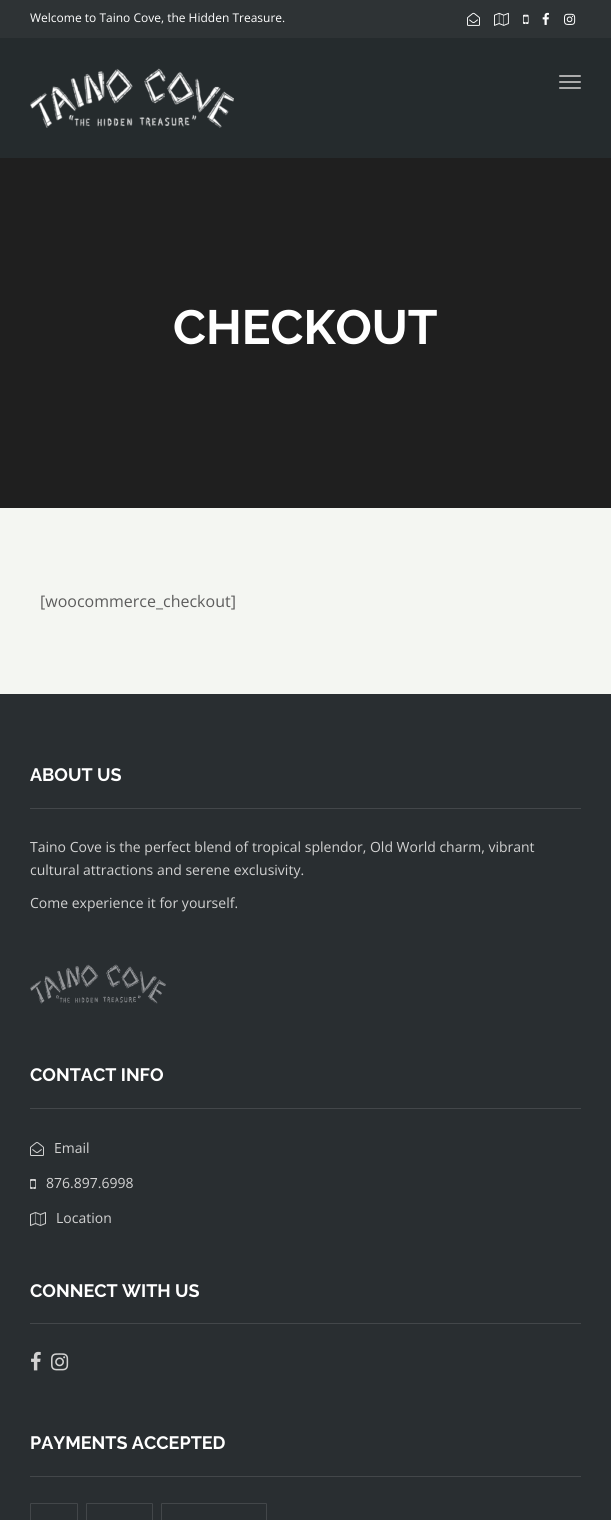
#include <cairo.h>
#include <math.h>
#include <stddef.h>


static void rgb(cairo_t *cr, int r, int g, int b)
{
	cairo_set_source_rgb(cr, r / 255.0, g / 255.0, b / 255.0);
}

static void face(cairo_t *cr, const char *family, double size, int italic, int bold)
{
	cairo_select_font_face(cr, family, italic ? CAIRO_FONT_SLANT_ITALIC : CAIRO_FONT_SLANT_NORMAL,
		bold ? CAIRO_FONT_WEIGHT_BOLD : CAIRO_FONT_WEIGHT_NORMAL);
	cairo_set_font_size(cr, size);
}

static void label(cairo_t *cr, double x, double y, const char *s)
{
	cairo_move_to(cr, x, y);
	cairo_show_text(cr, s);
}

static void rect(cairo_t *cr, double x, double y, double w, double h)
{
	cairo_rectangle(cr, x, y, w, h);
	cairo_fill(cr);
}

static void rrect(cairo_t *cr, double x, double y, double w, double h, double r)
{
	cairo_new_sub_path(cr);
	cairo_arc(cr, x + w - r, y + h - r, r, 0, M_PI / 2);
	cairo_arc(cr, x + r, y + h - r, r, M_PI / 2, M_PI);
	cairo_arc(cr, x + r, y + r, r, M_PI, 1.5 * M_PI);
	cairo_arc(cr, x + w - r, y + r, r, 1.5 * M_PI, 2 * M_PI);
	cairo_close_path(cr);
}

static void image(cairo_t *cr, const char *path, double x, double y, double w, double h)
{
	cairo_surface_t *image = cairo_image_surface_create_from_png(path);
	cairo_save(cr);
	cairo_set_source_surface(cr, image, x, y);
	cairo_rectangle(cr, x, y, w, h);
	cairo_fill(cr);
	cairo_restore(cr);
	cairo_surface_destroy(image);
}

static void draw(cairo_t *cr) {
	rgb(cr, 244, 246, 242);
	cairo_paint(cr);
	rgb(cr, 37, 43, 45);
	rect(cr, 0, 38, 611, 120);
	rgb(cr, 46, 51, 53);
	rect(cr, 0, 0, 611, 38);
	face(cr, "Open Sans", 12, 0, 0);
	rgb(cr, 255, 255, 255);
	label(cr, 30, 22, "Welcome to Taino Cove, the Hidden Treasure.");
	image(cr, "image0.png", 467, 12, 13, 14);
	image(cr, "image1.png", 494, 12, 15, 14);
	image(cr, "image2.png", 523, 14, 6, 10);
	image(cr, "image3.png", 542, 12, 7, 13);
	image(cr, "image4.png", 564, 13, 12, 12);
	image(cr, "image5.png", 30, 68, 204, 60);
	rgb(cr, 172, 172, 172);
	rrect(cr, 559, 75, 22, 2, 1);
	cairo_fill(cr);
	rrect(cr, 559, 81, 22, 2, 1);
	cairo_fill(cr);
	rrect(cr, 559, 87, 22, 2, 1);
	cairo_fill(cr);
	rgb(cr, 31, 31, 31);
	rect(cr, 0, 158, 611, 350);
	face(cr, "Raleway", 48, 0, 1);
	rgb(cr, 255, 255, 255);
	label(cr, 173, 344, "CHECKOUT");
	face(cr, "Open Sans", 16, 0, 0);
	rgb(cr, 92, 92, 92);
	label(cr, 40, 607, "[woocommerce_checkout]");
	rgb(cr, 41, 46, 49);
	rect(cr, 0, 694, 611, 826);
	rgb(cr, 67, 71, 74);
	rect(cr, 30, 808, 551, 1);
	face(cr, "Raleway", 18, 0, 1);
	rgb(cr, 255, 255, 255);
	label(cr, 30, 781, "ABOUT US");
	face(cr, "Open Sans", 14, 0, 0);
	rgb(cr, 210, 210, 210);
	label(cr, 30, 852, "Taino Cove is the perfect blend of tropical splendor, Old World charm, vibrant");
	label(cr, 30, 875, "cultural attractions and serene exclusivity.");
	label(cr, 30, 908, "Come experience it for yourself.");
	image(cr, "image6.png", 30, 964, 136, 40);
	rgb(cr, 67, 71, 74);
	rect(cr, 30, 1108, 551, 1);
	face(cr, "Raleway", 18, 0, 1);
	rgb(cr, 255, 255, 255);
	label(cr, 30, 1081, "CONTACT INFO");
	image(cr, "image7.png", 30, 1142, 14, 14);
	face(cr, "Open Sans", 14, 0, 0);
	rgb(cr, 210, 210, 210);
	label(cr, 54, 1153, "Email");
	image(cr, "image8.png", 30, 1179, 6, 10);
	label(cr, 46, 1188, "876.897.6998");
	image(cr, "image9.png", 30, 1212, 16, 14);
	label(cr, 56, 1223, "Location");
	rgb(cr, 67, 71, 74);
	rect(cr, 30, 1323, 551, 1);
	face(cr, "Raleway", 18, 0, 1);
	rgb(cr, 255, 255, 255);
	label(cr, 30, 1297, "CONNECT WITH US");
	image(cr, "image10.png", 31, 1351, 10, 20);
	image(cr, "image11.png", 51, 1353, 18, 18);
	rgb(cr, 67, 71, 74);
	rect(cr, 30, 1476, 551, 1);
	rgb(cr, 255, 255, 255);
	label(cr, 30, 1449, "PAYMENTS ACCEPTED");
	rrect(cr, 30.5, 1503.5, 47, 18, 0.5);
	rgb(cr, 67, 71, 74);
	cairo_set_line_width(cr, 1);
	cairo_stroke(cr);
	rrect(cr, 86.5, 1503.5, 66, 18, 0.5);
	cairo_stroke(cr);
	rrect(cr, 161.5, 1503.5, 105, 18, 0.5);
	cairo_stroke(cr);
}

int main(void) {
	cairo_surface_t *surface = cairo_image_surface_create(CAIRO_FORMAT_RGB24, 611, 1520);
	cairo_t *cr = cairo_create(surface);
	cairo_font_options_t *options = cairo_font_options_create();
	cairo_font_options_set_hint_metrics(options, CAIRO_HINT_METRICS_OFF);
	cairo_font_options_set_hint_style(options, CAIRO_HINT_STYLE_NONE);
	cairo_set_font_options(cr, options);
	cairo_set_miter_limit(cr, 4);
	draw(cr);
	cairo_surface_write_to_png(surface, "render.png");
	cairo_font_options_destroy(options);
	cairo_destroy(cr);
	cairo_surface_destroy(surface);
	return 0;
}
